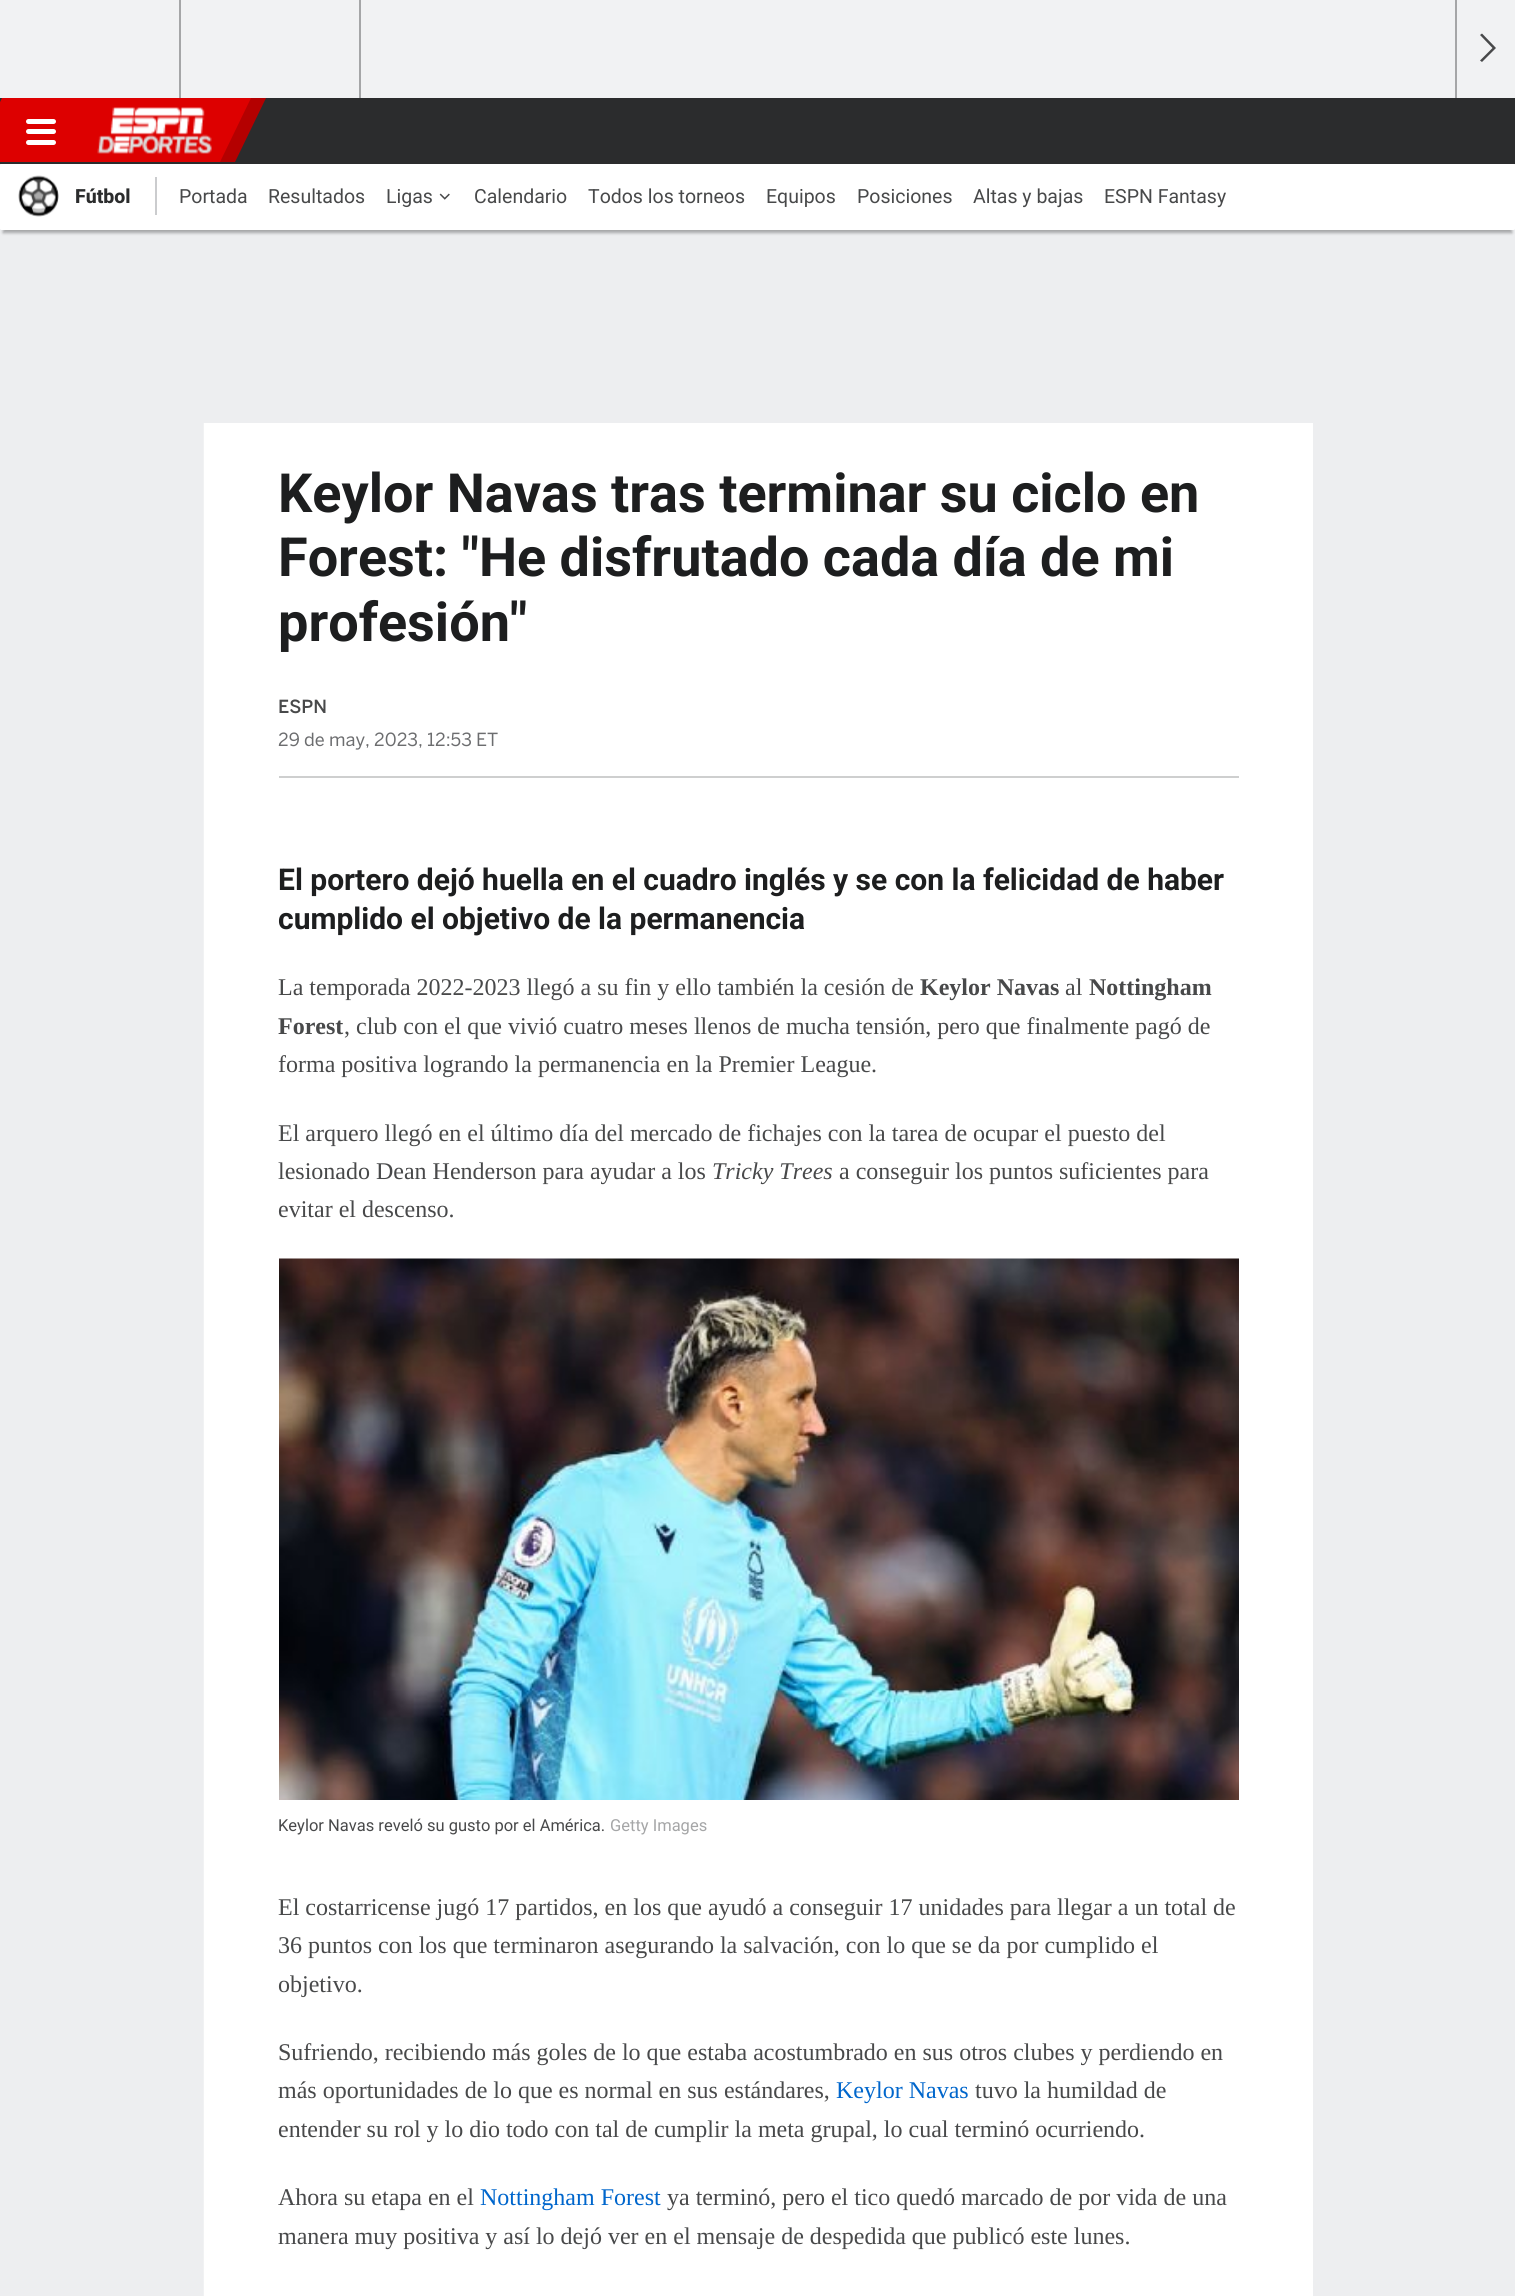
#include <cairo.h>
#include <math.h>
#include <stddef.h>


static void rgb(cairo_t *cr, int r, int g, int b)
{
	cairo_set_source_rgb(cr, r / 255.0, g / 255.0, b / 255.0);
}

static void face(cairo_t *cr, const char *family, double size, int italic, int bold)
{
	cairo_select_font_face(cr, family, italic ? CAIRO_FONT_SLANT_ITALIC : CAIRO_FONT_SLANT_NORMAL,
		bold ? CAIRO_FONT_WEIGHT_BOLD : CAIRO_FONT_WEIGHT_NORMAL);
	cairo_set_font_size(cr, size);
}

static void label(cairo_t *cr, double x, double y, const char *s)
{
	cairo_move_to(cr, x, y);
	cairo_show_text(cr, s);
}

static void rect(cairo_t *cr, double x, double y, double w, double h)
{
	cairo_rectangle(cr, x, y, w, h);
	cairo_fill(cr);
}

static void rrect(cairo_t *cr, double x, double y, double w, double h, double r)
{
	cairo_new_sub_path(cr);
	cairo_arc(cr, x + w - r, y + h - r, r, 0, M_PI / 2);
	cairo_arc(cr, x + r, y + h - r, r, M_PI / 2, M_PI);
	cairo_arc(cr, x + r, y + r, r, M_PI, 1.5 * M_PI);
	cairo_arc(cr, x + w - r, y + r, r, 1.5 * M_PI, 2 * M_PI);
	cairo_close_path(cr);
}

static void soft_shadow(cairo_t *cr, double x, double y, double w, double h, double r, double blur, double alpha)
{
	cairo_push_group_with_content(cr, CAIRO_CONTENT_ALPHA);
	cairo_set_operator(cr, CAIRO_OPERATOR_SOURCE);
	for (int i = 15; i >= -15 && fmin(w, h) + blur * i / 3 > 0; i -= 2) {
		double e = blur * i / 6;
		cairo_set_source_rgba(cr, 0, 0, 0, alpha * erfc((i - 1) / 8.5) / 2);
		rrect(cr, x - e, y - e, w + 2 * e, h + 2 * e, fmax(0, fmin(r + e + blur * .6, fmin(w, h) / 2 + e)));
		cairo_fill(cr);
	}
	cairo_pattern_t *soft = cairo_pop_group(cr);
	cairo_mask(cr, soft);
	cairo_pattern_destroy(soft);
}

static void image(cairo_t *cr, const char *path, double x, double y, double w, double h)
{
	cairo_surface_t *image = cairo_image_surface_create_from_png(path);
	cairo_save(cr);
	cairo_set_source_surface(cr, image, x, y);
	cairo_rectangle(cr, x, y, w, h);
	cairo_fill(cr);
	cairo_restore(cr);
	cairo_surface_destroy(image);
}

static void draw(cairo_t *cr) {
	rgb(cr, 237, 238, 240);
	cairo_paint(cr);
	rgb(cr, 241, 242, 243);
	rect(cr, 0, 0, 1515, 98);
	rgb(cr, 165, 166, 167);
	rect(cr, 179, 0, 2, 98);
	rect(cr, 359, 0, 2, 98);
	rect(cr, 1455, 0, 2, 98);
	rgb(cr, 72, 73, 74);
	cairo_new_path(cr);
	cairo_move_to(cr, 1482, 33.5);
	cairo_line_to(cr, 1480, 35);
	cairo_line_to(cr, 1492.5, 48);
	cairo_line_to(cr, 1480, 60.5);
	cairo_line_to(cr, 1482, 62);
	cairo_line_to(cr, 1496, 48);
	cairo_close_path(cr);
	cairo_fill(cr);
	rgb(cr, 43, 44, 45);
	rect(cr, 0, 98, 1515, 66);
	rgb(cr, 180, 0, 0);
	cairo_new_path(cr);
	cairo_move_to(cr, 81, 98);
	cairo_line_to(cr, 266, 98);
	cairo_line_to(cr, 235, 162);
	cairo_line_to(cr, 51, 162);
	cairo_close_path(cr);
	cairo_fill(cr);
	rgb(cr, 221, 0, 0);
	cairo_new_path(cr);
	cairo_move_to(cr, 2, 98);
	cairo_line_to(cr, 251, 98);
	cairo_line_to(cr, 220, 162);
	cairo_line_to(cr, -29, 162);
	cairo_close_path(cr);
	cairo_fill(cr);
	image(cr, "image0.png", 97, 107, 115, 47);
	rgb(cr, 255, 255, 255);
	rrect(cr, 26, 129, 30, 5, 2.5);
	cairo_fill(cr);
	rrect(cr, 26, 119, 30, 5, 2.5);
	cairo_fill(cr);
	rrect(cr, 26, 140, 30, 5, 2.5);
	cairo_fill(cr);
	rgb(cr, 0, 0, 0);
	soft_shadow(cr, 3, 173, 1509, 60, 0, 1.5, 0.3);
	rgb(cr, 255, 255, 255);
	rrect(cr, 0, 164, 1515, 66, 1.5);
	cairo_fill(cr);
	image(cr, "image1.png", 18, 175, 41, 42);
	face(cr, "Roboto ExtraBold", 19.5, 0, 0);
	rgb(cr, 43, 44, 45);
	label(cr, 75, 203, "Fútbol");
	rgb(cr, 203, 204, 206);
	rect(cr, 155, 177, 2, 38);
	face(cr, "Roboto", 19.5, 0, 0);
	rgb(cr, 72, 73, 74);
	label(cr, 179, 203, "Portada");
	label(cr, 268, 203, "Resultados");
	label(cr, 386, 203, "Ligas");
	image(cr, "image2.png", 439, 193, 11, 7);
	label(cr, 474, 203, "Calendario");
	label(cr, 588, 203, "Todos los torneos");
	label(cr, 766, 203, "Equipos");
	label(cr, 857, 203, "Posiciones");
	label(cr, 973, 203, "Altas y bajas");
	label(cr, 1104, 203, "ESPN Fantasy");
	rgb(cr, 241, 242, 243);
	rect(cr, 203, 423, 1, 1873);
	rgb(cr, 255, 255, 255);
	rect(cr, 204, 423, 1109, 1873);
	face(cr, "Roboto", 54, 0, 1);
	rgb(cr, 29, 30, 31);
	label(cr, 278, 512, "Keylor Navas tras terminar su ciclo en");
	label(cr, 278, 576, "Forest: \"He disfrutado cada día de mi");
	label(cr, 278, 641, "profesión\"");
	rgb(cr, 206, 207, 207);
	rect(cr, 279, 776, 960, 2);
	face(cr, "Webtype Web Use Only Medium", 18, 0, 0);
	rgb(cr, 72, 73, 74);
	label(cr, 278, 713, "ESPN");
	face(cr, "Webtype Web Use Only", 18, 0, 0);
	rgb(cr, 108, 109, 111);
	label(cr, 278, 746, "29 de may, 2023, 12:53 ET");
	face(cr, "Roboto", 30, 0, 1);
	rgb(cr, 29, 30, 31);
	label(cr, 278, 890, "El portero dejó huella en el cuadro inglés y se con la felicidad de haber");
	label(cr, 278, 929, "cumplido el objetivo de la permanencia");
	face(cr, "Liberation Serif", 24, 0, 0);
	rgb(cr, 72, 73, 74);
	label(cr, 278, 995, "La temporada 2022-2023 llegó a su fin y ello también la cesión de");
	face(cr, "Liberation Serif", 24, 0, 1);
	label(cr, 920, 995, "Keylor Navas");
	face(cr, "Liberation Serif", 24, 0, 0);
	label(cr, 1065, 995, "al");
	face(cr, "Liberation Serif", 24, 0, 1);
	label(cr, 1089, 995, "Nottingham");
	label(cr, 278, 1034, "Forest");
	face(cr, "Liberation Serif", 24, 0, 0);
	label(cr, 344, 1034, ", club con el que vivió cuatro meses llenos de mucha tensión, pero que finalmente pagó de");
	label(cr, 278, 1072, "forma positiva logrando la permanencia en la Premier League.");
	label(cr, 278, 1141, "El arquero llegó en el último día del mercado de fichajes con la tarea de ocupar el puesto del");
	label(cr, 278, 1179, "lesionado Dean Henderson para ayudar a los");
	face(cr, "Liberation Serif", 24, 1, 0);
	label(cr, 712, 1179, "Tricky Trees");
	face(cr, "Liberation Serif", 24, 0, 0);
	label(cr, 839, 1179, "a conseguir los puntos suficientes para");
	label(cr, 278, 1217, "evitar el descenso.");
	image(cr, "image3.png", 279, 1258, 960, 542);
	face(cr, "Roboto", 16.5, 0, 0);
	label(cr, 278, 1831, "Keylor Navas reveló su gusto por el América.");
	rgb(cr, 165, 166, 167);
	label(cr, 610, 1831, "Getty Images");
	face(cr, "Liberation Serif", 24, 0, 0);
	rgb(cr, 72, 73, 74);
	label(cr, 278, 1915, "El costarricense jugó 17 partidos, en los que ayudó a conseguir 17 unidades para llegar a un total de");
	label(cr, 278, 1953, "36 puntos con los que terminaron asegurando la salvación, con lo que se da por cumplido el");
	label(cr, 278, 1992, "objetivo.");
	label(cr, 278, 2060, "Sufriendo, recibiendo más goles de lo que estaba acostumbrado en sus otros clubes y perdiendo en");
	label(cr, 278, 2098, "más oportunidades de lo que es normal en sus estándares,");
	rgb(cr, 0, 102, 204);
	label(cr, 836, 2098, "Keylor Navas");
	rgb(cr, 72, 73, 74);
	label(cr, 975, 2098, "tuvo la humildad de");
	label(cr, 278, 2137, "entender su rol y lo dio todo con tal de cumplir la meta grupal, lo cual terminó ocurriendo.");
	label(cr, 278, 2205, "Ahora su etapa en el");
	rgb(cr, 0, 102, 204);
	label(cr, 480, 2205, "Nottingham Forest");
	rgb(cr, 72, 73, 74);
	label(cr, 667, 2205, "ya terminó, pero el tico quedó marcado de por vida de una");
	label(cr, 278, 2244, "manera muy positiva y así lo dejó ver en el mensaje de despedida que publicó este lunes.");
}

int main(void) {
	cairo_surface_t *surface = cairo_image_surface_create(CAIRO_FORMAT_RGB24, 1515, 2296);
	cairo_t *cr = cairo_create(surface);
	cairo_font_options_t *options = cairo_font_options_create();
	cairo_font_options_set_hint_metrics(options, CAIRO_HINT_METRICS_OFF);
	cairo_font_options_set_hint_style(options, CAIRO_HINT_STYLE_NONE);
	cairo_set_font_options(cr, options);
	cairo_set_miter_limit(cr, 4);
	draw(cr);
	cairo_surface_write_to_png(surface, "render.png");
	cairo_font_options_destroy(options);
	cairo_destroy(cr);
	cairo_surface_destroy(surface);
	return 0;
}
